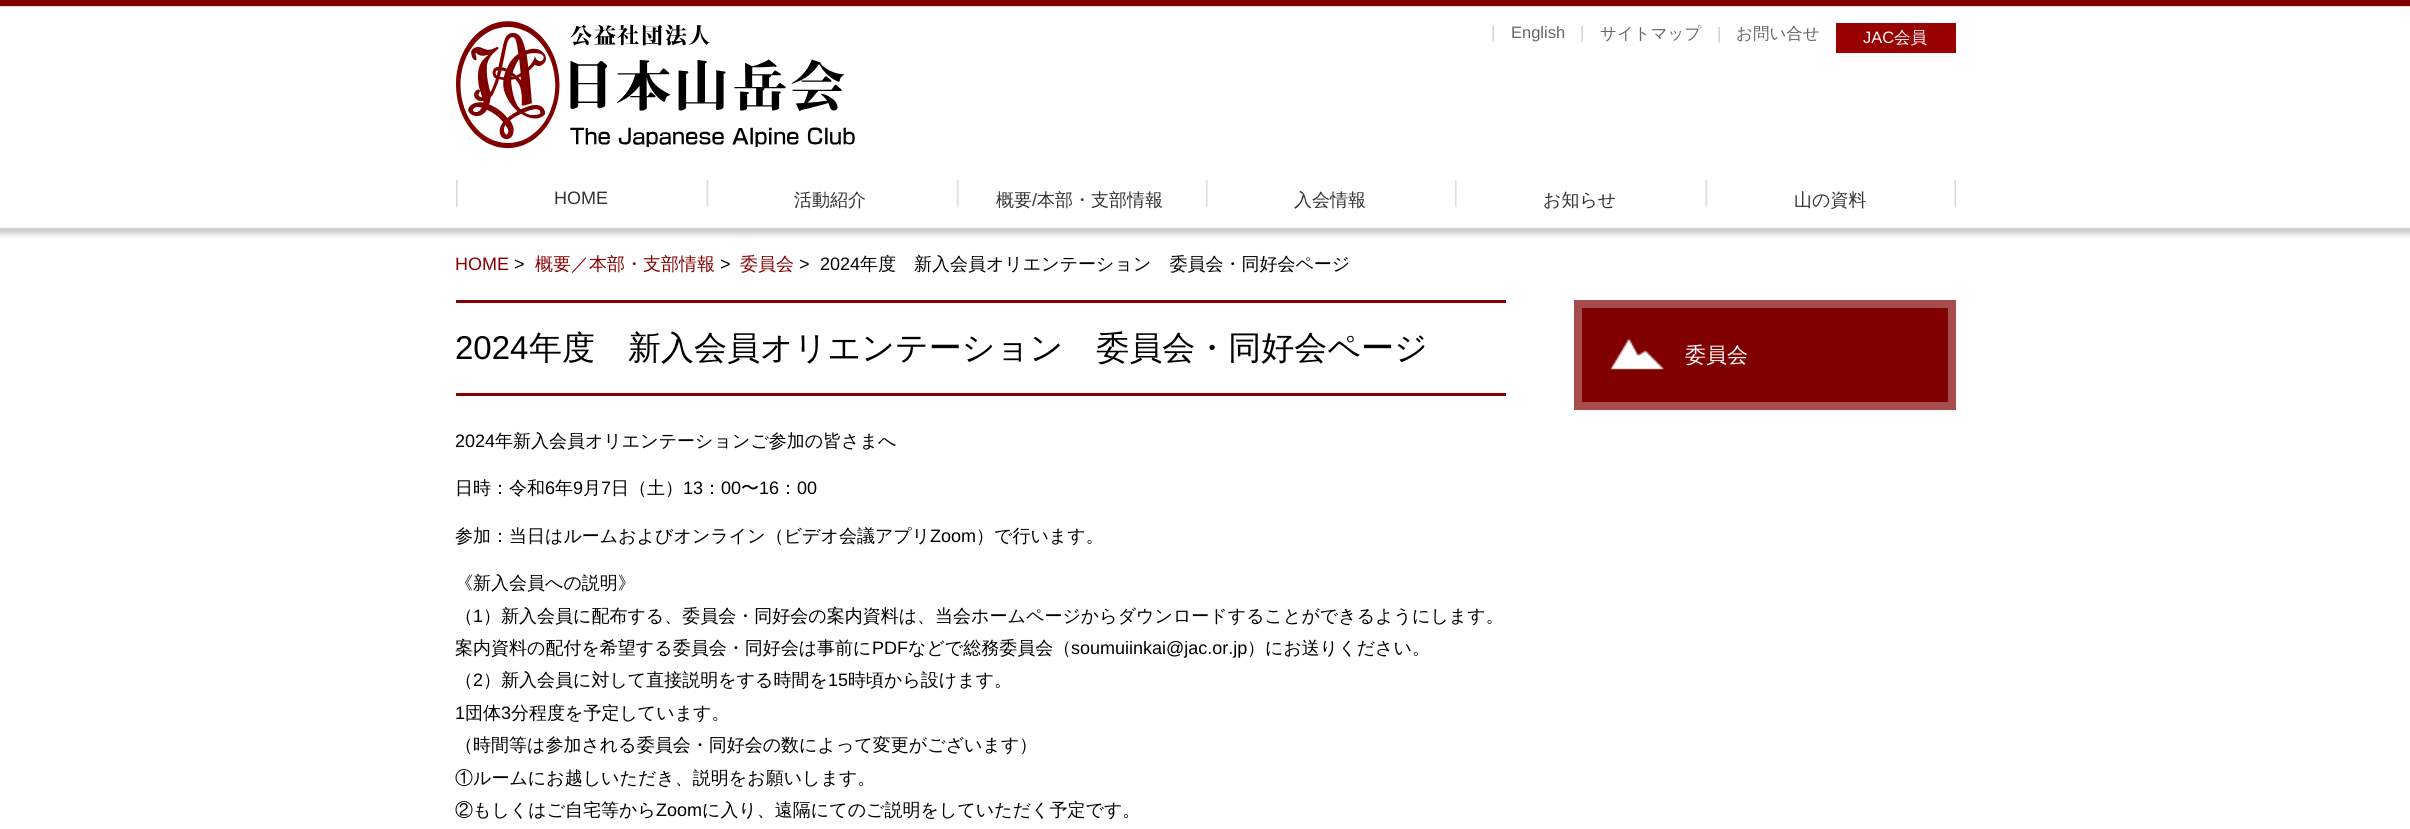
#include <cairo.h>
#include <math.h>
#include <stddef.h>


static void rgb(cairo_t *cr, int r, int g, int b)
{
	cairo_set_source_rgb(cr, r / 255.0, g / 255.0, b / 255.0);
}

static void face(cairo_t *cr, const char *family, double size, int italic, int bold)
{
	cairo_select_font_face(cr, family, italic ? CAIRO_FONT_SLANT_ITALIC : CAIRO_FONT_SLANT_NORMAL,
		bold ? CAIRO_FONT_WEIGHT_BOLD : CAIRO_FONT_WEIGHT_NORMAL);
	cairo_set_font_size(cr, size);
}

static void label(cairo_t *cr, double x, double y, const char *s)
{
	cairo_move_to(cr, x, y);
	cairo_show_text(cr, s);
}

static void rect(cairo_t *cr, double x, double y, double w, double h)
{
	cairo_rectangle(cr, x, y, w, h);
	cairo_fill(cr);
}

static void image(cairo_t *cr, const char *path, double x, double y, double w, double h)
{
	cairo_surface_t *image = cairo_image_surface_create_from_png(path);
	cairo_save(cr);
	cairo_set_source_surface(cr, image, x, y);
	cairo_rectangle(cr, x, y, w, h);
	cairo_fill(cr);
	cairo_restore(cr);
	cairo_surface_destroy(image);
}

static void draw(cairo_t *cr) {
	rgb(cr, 255, 255, 255);
	cairo_paint(cr);
	image(cr, "image0.png", 0, 6, 2410, 232);
	rgb(cr, 128, 0, 0);
	rect(cr, 0, 0, 2410, 6);
	image(cr, "image1.png", 456, 21, 399, 128);
	face(cr, "Liberation Sans", 16.5, 0, 0);
	rgb(cr, 204, 204, 204);
	label(cr, 1491, 38, "|");
	rgb(cr, 102, 102, 102);
	label(cr, 1511, 38, "English");
	rgb(cr, 204, 204, 204);
	label(cr, 1580, 38, "|");
	face(cr, "WenQuanYi Zen Hei Medium", 16.5, 0, 0);
	rgb(cr, 102, 102, 102);
	label(cr, 1600, 39, "サイトマップ");
	face(cr, "Liberation Sans", 16.5, 0, 0);
	rgb(cr, 204, 204, 204);
	label(cr, 1717, 39, "|");
	face(cr, "WenQuanYi Zen Hei Medium", 16.5, 0, 0);
	rgb(cr, 102, 102, 102);
	label(cr, 1736, 39, "お問い合せ");
	rgb(cr, 153, 0, 0);
	rect(cr, 1836, 23, 120, 30);
	face(cr, "Liberation Sans", 16.5, 0, 0);
	rgb(cr, 255, 255, 255);
	label(cr, 1863, 43, "JAC");
	face(cr, "WenQuanYi Zen Hei Medium", 16.5, 0, 0);
	label(cr, 1894, 43, "会員");
	image(cr, "image2.png", 456, 180, 1500, 28);
	face(cr, "Liberation Sans", 18, 0, 0);
	rgb(cr, 51, 51, 51);
	label(cr, 554, 204, "HOME");
	face(cr, "WenQuanYi Zen Hei Medium", 18, 0, 0);
	label(cr, 794, 206, "活動紹介");
	label(cr, 996, 206, "概要");
	face(cr, "Liberation Sans", 18, 0, 0);
	label(cr, 1032, 206, "/");
	face(cr, "WenQuanYi Zen Hei Medium", 18, 0, 0);
	label(cr, 1037, 206, "本部・支部情報");
	label(cr, 1294, 206, "入会情報");
	label(cr, 1543, 206, "お知らせ");
	label(cr, 1794, 206, "山の資料");
	face(cr, "Liberation Sans", 18, 0, 0);
	rgb(cr, 136, 0, 0);
	label(cr, 455, 270, "HOME");
	rgb(cr, 0, 0, 0);
	label(cr, 514, 270, ">");
	face(cr, "WenQuanYi Zen Hei Medium", 18, 0, 0);
	rgb(cr, 136, 0, 0);
	label(cr, 535, 270, "概要／本部・支部情報");
	face(cr, "Liberation Sans", 18, 0, 0);
	rgb(cr, 0, 0, 0);
	label(cr, 720, 270, ">");
	face(cr, "WenQuanYi Zen Hei Medium", 18, 0, 0);
	rgb(cr, 136, 0, 0);
	label(cr, 740, 270, "委員会");
	face(cr, "Liberation Sans", 18, 0, 0);
	rgb(cr, 0, 0, 0);
	label(cr, 799, 270, ">");
	label(cr, 820, 270, "2024");
	face(cr, "WenQuanYi Zen Hei Medium", 18, 0, 0);
	label(cr, 860, 270, "年度　新入会員オリエンテーション　委員会・同好会ページ");
	rgb(cr, 136, 0, 0);
	rect(cr, 456, 300, 1050, 3);
	rect(cr, 456, 393, 1050, 3);
	face(cr, "Liberation Sans", 33, 0, 0);
	rgb(cr, 0, 0, 0);
	label(cr, 455, 359, "2024");
	face(cr, "WenQuanYi Zen Hei Medium", 33, 0, 0);
	label(cr, 529, 359, "年度　新入会員オリエンテーション　委員会・同好会ページ");
	face(cr, "Liberation Sans", 18, 0, 0);
	label(cr, 455, 447, "2024");
	face(cr, "WenQuanYi Zen Hei Medium", 18, 0, 0);
	label(cr, 495, 447, "年新入会員オリエンテーションご参加の皆さまへ");
	label(cr, 455, 494, "日時：令和");
	face(cr, "Liberation Sans", 18, 0, 0);
	label(cr, 545, 494, "6");
	face(cr, "WenQuanYi Zen Hei Medium", 18, 0, 0);
	label(cr, 555, 494, "年");
	face(cr, "Liberation Sans", 18, 0, 0);
	label(cr, 573, 494, "9");
	face(cr, "WenQuanYi Zen Hei Medium", 18, 0, 0);
	label(cr, 583, 494, "月");
	face(cr, "Liberation Sans", 18, 0, 0);
	label(cr, 601, 494, "7");
	face(cr, "WenQuanYi Zen Hei Medium", 18, 0, 0);
	label(cr, 611, 494, "日（土）");
	face(cr, "Liberation Sans", 18, 0, 0);
	label(cr, 683, 494, "13");
	face(cr, "WenQuanYi Zen Hei Medium", 18, 0, 0);
	label(cr, 703, 494, "：");
	face(cr, "Liberation Sans", 18, 0, 0);
	label(cr, 721, 494, "00");
	face(cr, "WenQuanYi Zen Hei Medium", 18, 0, 0);
	label(cr, 741, 494, "〜");
	face(cr, "Liberation Sans", 18, 0, 0);
	label(cr, 759, 494, "16");
	face(cr, "WenQuanYi Zen Hei Medium", 18, 0, 0);
	label(cr, 779, 494, "：");
	face(cr, "Liberation Sans", 18, 0, 0);
	label(cr, 797, 494, "00");
	face(cr, "WenQuanYi Zen Hei Medium", 18, 0, 0);
	label(cr, 455, 542, "参加：当日はルームおよびオンライン（ビデオ会議アプリ");
	face(cr, "Liberation Sans", 18, 0, 0);
	label(cr, 930, 542, "Zoom");
	face(cr, "WenQuanYi Zen Hei Medium", 18, 0, 0);
	label(cr, 976, 542, "）で行います。");
	label(cr, 455, 589, "《新入会員への説明》");
	label(cr, 455, 622, "（");
	face(cr, "Liberation Sans", 18, 0, 0);
	label(cr, 473, 622, "1");
	face(cr, "WenQuanYi Zen Hei Medium", 18, 0, 0);
	label(cr, 483, 622, "）新入会員に配布する、委員会・同好会の案内資料は、当会ホームページからダウンロードすることができるようにします。");
	label(cr, 455, 654, "案内資料の配付を希望する委員会・同好会は事前に");
	face(cr, "Liberation Sans", 18, 0, 0);
	label(cr, 872, 654, "PDF");
	face(cr, "WenQuanYi Zen Hei Medium", 18, 0, 0);
	label(cr, 908, 654, "などで総務委員会（");
	face(cr, "Liberation Sans", 18, 0, 0);
	label(cr, 1071, 654, "soumuiinkai@jac.or.jp");
	face(cr, "WenQuanYi Zen Hei Medium", 18, 0, 0);
	label(cr, 1247, 654, "）にお送りください。");
	label(cr, 455, 686, "（");
	face(cr, "Liberation Sans", 18, 0, 0);
	label(cr, 473, 686, "2");
	face(cr, "WenQuanYi Zen Hei Medium", 18, 0, 0);
	label(cr, 483, 686, "）新入会員に対して直接説明をする時間を");
	face(cr, "Liberation Sans", 18, 0, 0);
	label(cr, 828, 686, "15");
	face(cr, "WenQuanYi Zen Hei Medium", 18, 0, 0);
	label(cr, 848, 686, "時頃から設けます。");
	face(cr, "Liberation Sans", 18, 0, 0);
	label(cr, 455, 719, "1");
	face(cr, "WenQuanYi Zen Hei Medium", 18, 0, 0);
	label(cr, 465, 719, "団体");
	face(cr, "Liberation Sans", 18, 0, 0);
	label(cr, 501, 719, "3");
	face(cr, "WenQuanYi Zen Hei Medium", 18, 0, 0);
	label(cr, 511, 719, "分程度を予定しています。");
	label(cr, 455, 751, "（時間等は参加される委員会・同好会の数によって変更がございます）");
	label(cr, 455, 784, "①ルームにお越しいただき、説明をお願いします。");
	label(cr, 455, 816, "②もしくはご自宅等から");
	face(cr, "Liberation Sans", 18, 0, 0);
	label(cr, 656, 816, "Zoom");
	face(cr, "WenQuanYi Zen Hei Medium", 18, 0, 0);
	label(cr, 702, 816, "に入り、遠隔にてのご説明をしていただく予定です。");
	image(cr, "image3.png", 1582, 308, 366, 94);
	cairo_rectangle(cr, 1578, 304, 374, 102);
	rgb(cr, 166, 76, 76);
	cairo_set_line_width(cr, 8);
	cairo_stroke(cr);
	face(cr, "WenQuanYi Zen Hei Medium", 21, 0, 0);
	rgb(cr, 255, 255, 255);
	label(cr, 1685, 362, "委員会");
}

int main(void) {
	cairo_surface_t *surface = cairo_image_surface_create(CAIRO_FORMAT_RGB24, 2410, 829);
	cairo_t *cr = cairo_create(surface);
	cairo_font_options_t *options = cairo_font_options_create();
	cairo_font_options_set_hint_metrics(options, CAIRO_HINT_METRICS_OFF);
	cairo_font_options_set_hint_style(options, CAIRO_HINT_STYLE_NONE);
	cairo_set_font_options(cr, options);
	cairo_set_miter_limit(cr, 4);
	draw(cr);
	cairo_surface_write_to_png(surface, "render.png");
	cairo_font_options_destroy(options);
	cairo_destroy(cr);
	cairo_surface_destroy(surface);
	return 0;
}
